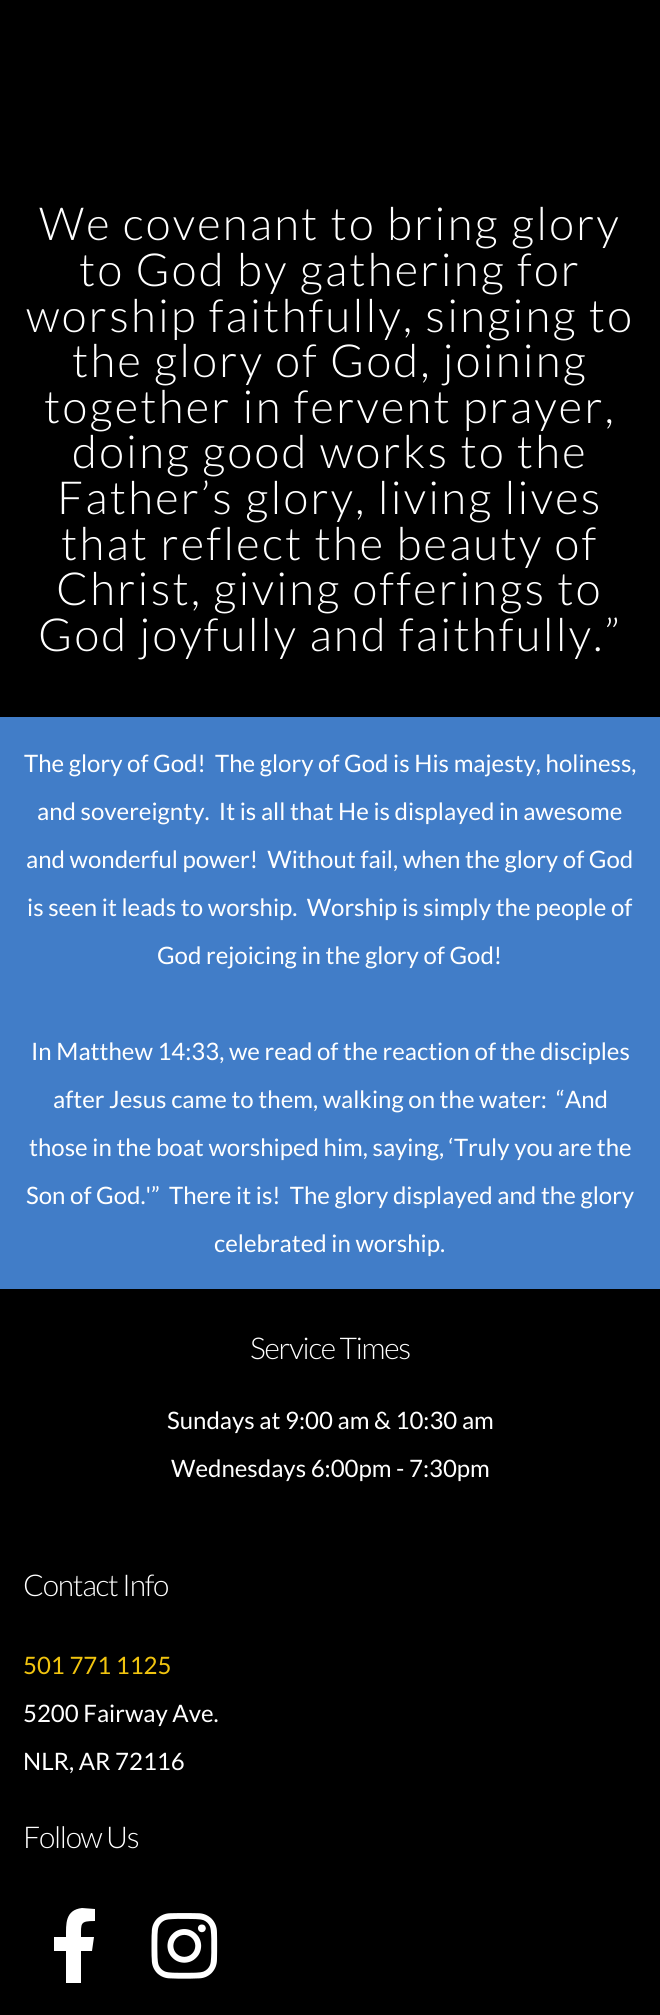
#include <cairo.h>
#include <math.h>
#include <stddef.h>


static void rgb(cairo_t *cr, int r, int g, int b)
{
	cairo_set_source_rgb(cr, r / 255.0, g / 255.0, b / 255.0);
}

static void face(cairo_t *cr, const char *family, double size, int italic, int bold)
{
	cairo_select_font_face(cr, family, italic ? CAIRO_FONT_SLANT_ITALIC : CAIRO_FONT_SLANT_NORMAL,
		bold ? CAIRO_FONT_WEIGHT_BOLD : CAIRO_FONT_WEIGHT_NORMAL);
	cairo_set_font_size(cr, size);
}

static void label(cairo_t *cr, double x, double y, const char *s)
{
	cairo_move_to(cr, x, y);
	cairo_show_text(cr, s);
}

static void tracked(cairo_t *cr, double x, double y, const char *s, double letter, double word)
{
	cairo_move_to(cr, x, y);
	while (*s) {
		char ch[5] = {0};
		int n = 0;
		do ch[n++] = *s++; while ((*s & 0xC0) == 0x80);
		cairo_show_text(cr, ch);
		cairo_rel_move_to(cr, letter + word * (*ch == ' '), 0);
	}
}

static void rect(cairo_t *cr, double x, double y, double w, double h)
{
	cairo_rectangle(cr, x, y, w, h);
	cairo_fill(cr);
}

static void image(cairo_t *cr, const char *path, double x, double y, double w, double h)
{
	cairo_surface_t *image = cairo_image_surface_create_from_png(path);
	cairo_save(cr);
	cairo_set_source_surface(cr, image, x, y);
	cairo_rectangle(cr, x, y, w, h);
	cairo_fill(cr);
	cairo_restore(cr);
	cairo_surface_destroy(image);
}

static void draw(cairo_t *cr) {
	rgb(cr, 0, 0, 0);
	cairo_paint(cr);
	face(cr, "Lato Light", 45.6, 0, 0);
	rgb(cr, 255, 255, 255);
	tracked(cr, 39, 240, "We covenant to bring glory", 2.25, 0);
	tracked(cr, 79, 286, "to God by gathering for", 2.25, 0);
	tracked(cr, 26, 332, "worship faithfully, singing to", 2.25, 0);
	tracked(cr, 72, 377, "the glory of God, joining", 2.25, 0);
	tracked(cr, 44, 423, "together in fervent prayer,", 2.25, 0);
	tracked(cr, 72, 468, "doing good works to the", 2.25, 0);
	tracked(cr, 57, 514, "Father’s glory, living lives", 2.25, 0);
	tracked(cr, 61, 560, "that reflect the beauty of", 2.25, 0);
	tracked(cr, 56, 605, "Christ, giving offerings to", 2.25, 0);
	tracked(cr, 38, 651, "God joyfully and faithfully.”", 2.25, 0);
	rgb(cr, 65, 125, 200);
	rect(cr, 0, 717, 660, 572);
	face(cr, "Lato", 24, 0, 0);
	rgb(cr, 255, 255, 255);
	label(cr, 24, 772, "The glory of God!  The glory of God is His majesty, holiness,");
	label(cr, 37, 820, "and sovereignty.  It is all that He is displayed in awesome");
	label(cr, 26, 868, "and wonderful power!  Without fail, when the glory of God");
	label(cr, 27, 916, "is seen it leads to worship.  Worship is simply the people of");
	label(cr, 157, 964, "God rejoicing in the glory of God!");
	label(cr, 31, 1060, "In Matthew 14:33, we read of the reaction of the disciples");
	label(cr, 53, 1108, "after Jesus came to them, walking on the water:  “And");
	label(cr, 29, 1156, "those in the boat worshiped him, saying, ‘Truly you are the");
	label(cr, 26, 1204, "Son of God.'”  There it is!  The glory displayed and the glory");
	label(cr, 214, 1252, "celebrated in worship.");
	face(cr, "Lato Light", 30, 0, 0);
	tracked(cr, 250, 1359, "Service Times", -1.25, 0);
	face(cr, "Lato", 24, 0, 0);
	label(cr, 167, 1429, "Sundays at 9:00 am & 10:30 am");
	label(cr, 171, 1477, "Wednesdays 6:00pm - 7:30pm");
	face(cr, "Lato Light", 30, 0, 0);
	tracked(cr, 23, 1596, "Contact Info", -1.25, 0);
	face(cr, "Lato", 24, 0, 0);
	rgb(cr, 241, 196, 15);
	label(cr, 23, 1674, "501 771 1125");
	rgb(cr, 255, 255, 255);
	label(cr, 23, 1722, "5200 Fairway Ave.");
	label(cr, 23, 1770, "NLR, AR 72116");
	face(cr, "Lato Light", 30, 0, 0);
	tracked(cr, 23, 1848, "Follow Us", -1.25, 0);
	cairo_new_path(cr);
	cairo_move_to(cr, 92, 1951);
	cairo_line_to(cr, 94, 1937);
	cairo_line_to(cr, 81, 1937);
	cairo_curve_to(cr, 81, 1923, 80, 1921, 95, 1921);
	cairo_line_to(cr, 95, 1909);
	cairo_line_to(cr, 82, 1908);
	cairo_curve_to(cr, 65, 1910, 66, 1924, 66, 1937);
	cairo_line_to(cr, 54, 1937);
	cairo_line_to(cr, 54, 1951);
	cairo_line_to(cr, 66, 1951);
	cairo_line_to(cr, 66, 1983);
	cairo_line_to(cr, 81, 1983);
	cairo_line_to(cr, 81, 1951);
	cairo_close_path(cr);
	cairo_fill(cr);
	image(cr, "image0.png", 151, 1913, 67, 66);
}

int main(void) {
	cairo_surface_t *surface = cairo_image_surface_create(CAIRO_FORMAT_RGB24, 660, 2015);
	cairo_t *cr = cairo_create(surface);
	cairo_font_options_t *options = cairo_font_options_create();
	cairo_font_options_set_hint_metrics(options, CAIRO_HINT_METRICS_OFF);
	cairo_font_options_set_hint_style(options, CAIRO_HINT_STYLE_NONE);
	cairo_set_font_options(cr, options);
	cairo_set_miter_limit(cr, 4);
	draw(cr);
	cairo_surface_write_to_png(surface, "render.png");
	cairo_font_options_destroy(options);
	cairo_destroy(cr);
	cairo_surface_destroy(surface);
	return 0;
}
